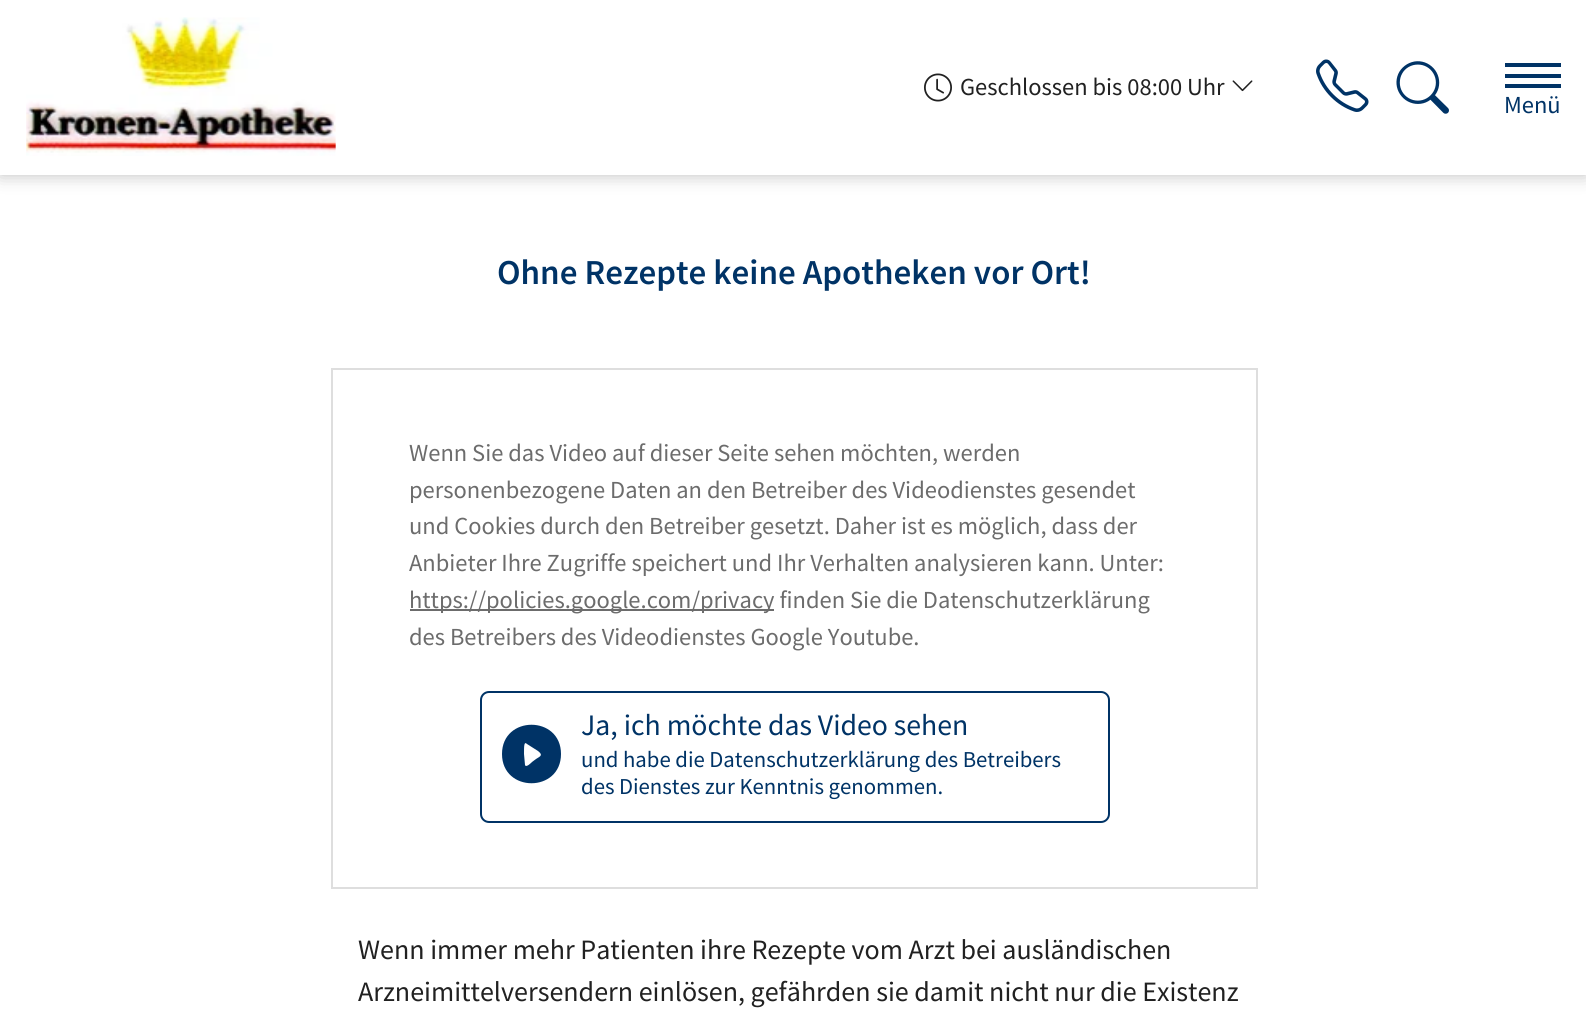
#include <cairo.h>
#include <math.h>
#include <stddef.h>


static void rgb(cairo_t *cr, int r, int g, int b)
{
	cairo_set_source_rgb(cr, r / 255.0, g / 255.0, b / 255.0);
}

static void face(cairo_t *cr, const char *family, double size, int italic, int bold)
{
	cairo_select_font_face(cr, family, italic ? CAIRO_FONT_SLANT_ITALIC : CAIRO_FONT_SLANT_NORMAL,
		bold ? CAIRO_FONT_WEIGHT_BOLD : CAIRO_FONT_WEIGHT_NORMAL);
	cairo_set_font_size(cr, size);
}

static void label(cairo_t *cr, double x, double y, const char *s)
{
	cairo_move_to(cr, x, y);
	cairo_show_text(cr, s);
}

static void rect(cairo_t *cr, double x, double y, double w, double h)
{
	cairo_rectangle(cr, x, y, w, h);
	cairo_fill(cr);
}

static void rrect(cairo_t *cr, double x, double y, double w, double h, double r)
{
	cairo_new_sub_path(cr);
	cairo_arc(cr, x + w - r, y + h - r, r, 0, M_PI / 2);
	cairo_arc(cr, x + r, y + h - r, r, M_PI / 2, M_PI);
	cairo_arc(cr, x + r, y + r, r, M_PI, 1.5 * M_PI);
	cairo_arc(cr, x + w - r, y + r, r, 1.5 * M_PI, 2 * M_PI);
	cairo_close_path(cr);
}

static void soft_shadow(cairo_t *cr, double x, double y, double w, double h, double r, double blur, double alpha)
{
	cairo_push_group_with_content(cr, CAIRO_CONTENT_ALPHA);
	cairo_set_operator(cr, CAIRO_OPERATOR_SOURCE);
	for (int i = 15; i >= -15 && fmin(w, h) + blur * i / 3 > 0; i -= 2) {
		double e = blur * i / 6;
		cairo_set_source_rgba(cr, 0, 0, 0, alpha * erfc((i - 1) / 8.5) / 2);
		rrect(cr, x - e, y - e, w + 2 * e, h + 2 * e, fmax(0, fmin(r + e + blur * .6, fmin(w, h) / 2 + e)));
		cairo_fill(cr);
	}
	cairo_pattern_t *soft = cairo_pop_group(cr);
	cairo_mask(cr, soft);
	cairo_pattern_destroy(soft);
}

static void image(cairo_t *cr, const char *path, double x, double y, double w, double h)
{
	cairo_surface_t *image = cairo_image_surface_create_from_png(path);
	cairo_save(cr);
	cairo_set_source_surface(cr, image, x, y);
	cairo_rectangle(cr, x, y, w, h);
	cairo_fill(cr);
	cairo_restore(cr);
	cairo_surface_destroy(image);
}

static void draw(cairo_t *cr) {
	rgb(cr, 255, 255, 255);
	cairo_paint(cr);
	rgb(cr, 0, 0, 0);
	soft_shadow(cr, 0, 0, 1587, 175, 0, 9, 0.25);
	rgb(cr, 255, 255, 255);
	rect(cr, 0, 0, 1586, 175);
	image(cr, "image0.png", 26, 17, 310, 139);
	image(cr, "image1.png", 924, 73, 28, 29);
	face(cr, "Source Sans Pro", 24.5, 0, 0);
	rgb(cr, 33, 33, 33);
	label(cr, 960, 95, "Geschlossen bis 08:00 Uhr");
	image(cr, "image2.png", 1232, 80, 21, 12);
	image(cr, "image3.png", 1316, 59, 53, 53);
	image(cr, "image4.png", 1396, 61, 53, 53);
	rgb(cr, 0, 51, 102);
	rect(cr, 1505, 74, 56, 4);
	rect(cr, 1505, 63, 56, 4);
	rect(cr, 1505, 84, 56, 4);
	label(cr, 1504, 113, "Menü");
	face(cr, "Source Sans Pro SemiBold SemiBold", 35, 0, 0);
	label(cr, 497, 284, "Ohne Rezepte keine Apotheken vor Ort!");
	cairo_rectangle(cr, 332, 369, 925, 519);
	rgb(cr, 222, 222, 222);
	cairo_stroke(cr);
	face(cr, "Source Sans Pro", 24.5, 0, 0);
	rgb(cr, 108, 108, 108);
	label(cr, 409, 461, "Wenn Sie das Video auf dieser Seite sehen möchten, werden");
	label(cr, 409, 498, "personenbezogene Daten an den Betreiber des Videodienstes gesendet");
	label(cr, 409, 534, "und Cookies durch den Betreiber gesetzt. Daher ist es möglich, dass der");
	label(cr, 409, 571, "Anbieter Ihre Zugriffe speichert und Ihr Verhalten analysieren kann. Unter:");
	rect(cr, 410, 609, 364, 2);
	label(cr, 409, 608, "https://policies.google.com/privacy finden Sie die Datenschutzerklärung");
	label(cr, 409, 645, "des Betreibers des Videodienstes Google Youtube.");
	rrect(cr, 481, 692, 628, 130, 8);
	rgb(cr, 0, 51, 102);
	cairo_stroke(cr);
	cairo_new_path(cr);
	cairo_move_to(cr, 561, 754);
	cairo_curve_to(cr, 561, 793, 502, 793, 502, 754);
	cairo_curve_to(cr, 502, 715, 561, 715, 561, 754);
	cairo_close_path(cr);
	cairo_move_to(cr, 527, 744);
	cairo_curve_to(cr, 524, 741, 524, 746, 524, 754);
	cairo_line_to(cr, 525, 765);
	cairo_curve_to(cr, 526, 768, 531, 763, 532, 762);
	cairo_line_to(cr, 536, 759);
	cairo_curve_to(cr, 541, 756, 543, 755, 538, 751);
	cairo_close_path(cr);
	cairo_fill(cr);
	face(cr, "Source Sans Pro", 29.75, 0, 0);
	label(cr, 581, 735, "Ja, ich möchte das Video sehen");
	face(cr, "Source Sans Pro", 22.75, 0, 0);
	label(cr, 581, 767, "und habe die Datenschutzerklärung des Betreibers");
	label(cr, 581, 794, "des Dienstes zur Kenntnis genommen.");
	face(cr, "Source Sans Pro", 28, 0, 0);
	rgb(cr, 33, 33, 33);
	label(cr, 358, 959, "Wenn immer mehr Patienten ihre Rezepte vom Arzt bei ausländischen");
	label(cr, 358, 1001, "Arzneimittelversendern einlösen, gefährden sie damit nicht nur die Existenz");
}

int main(void) {
	cairo_surface_t *surface = cairo_image_surface_create(CAIRO_FORMAT_RGB24, 1586, 1022);
	cairo_t *cr = cairo_create(surface);
	cairo_font_options_t *options = cairo_font_options_create();
	cairo_font_options_set_hint_metrics(options, CAIRO_HINT_METRICS_OFF);
	cairo_font_options_set_hint_style(options, CAIRO_HINT_STYLE_NONE);
	cairo_set_font_options(cr, options);
	cairo_set_miter_limit(cr, 4);
	draw(cr);
	cairo_surface_write_to_png(surface, "render.png");
	cairo_font_options_destroy(options);
	cairo_destroy(cr);
	cairo_surface_destroy(surface);
	return 0;
}
